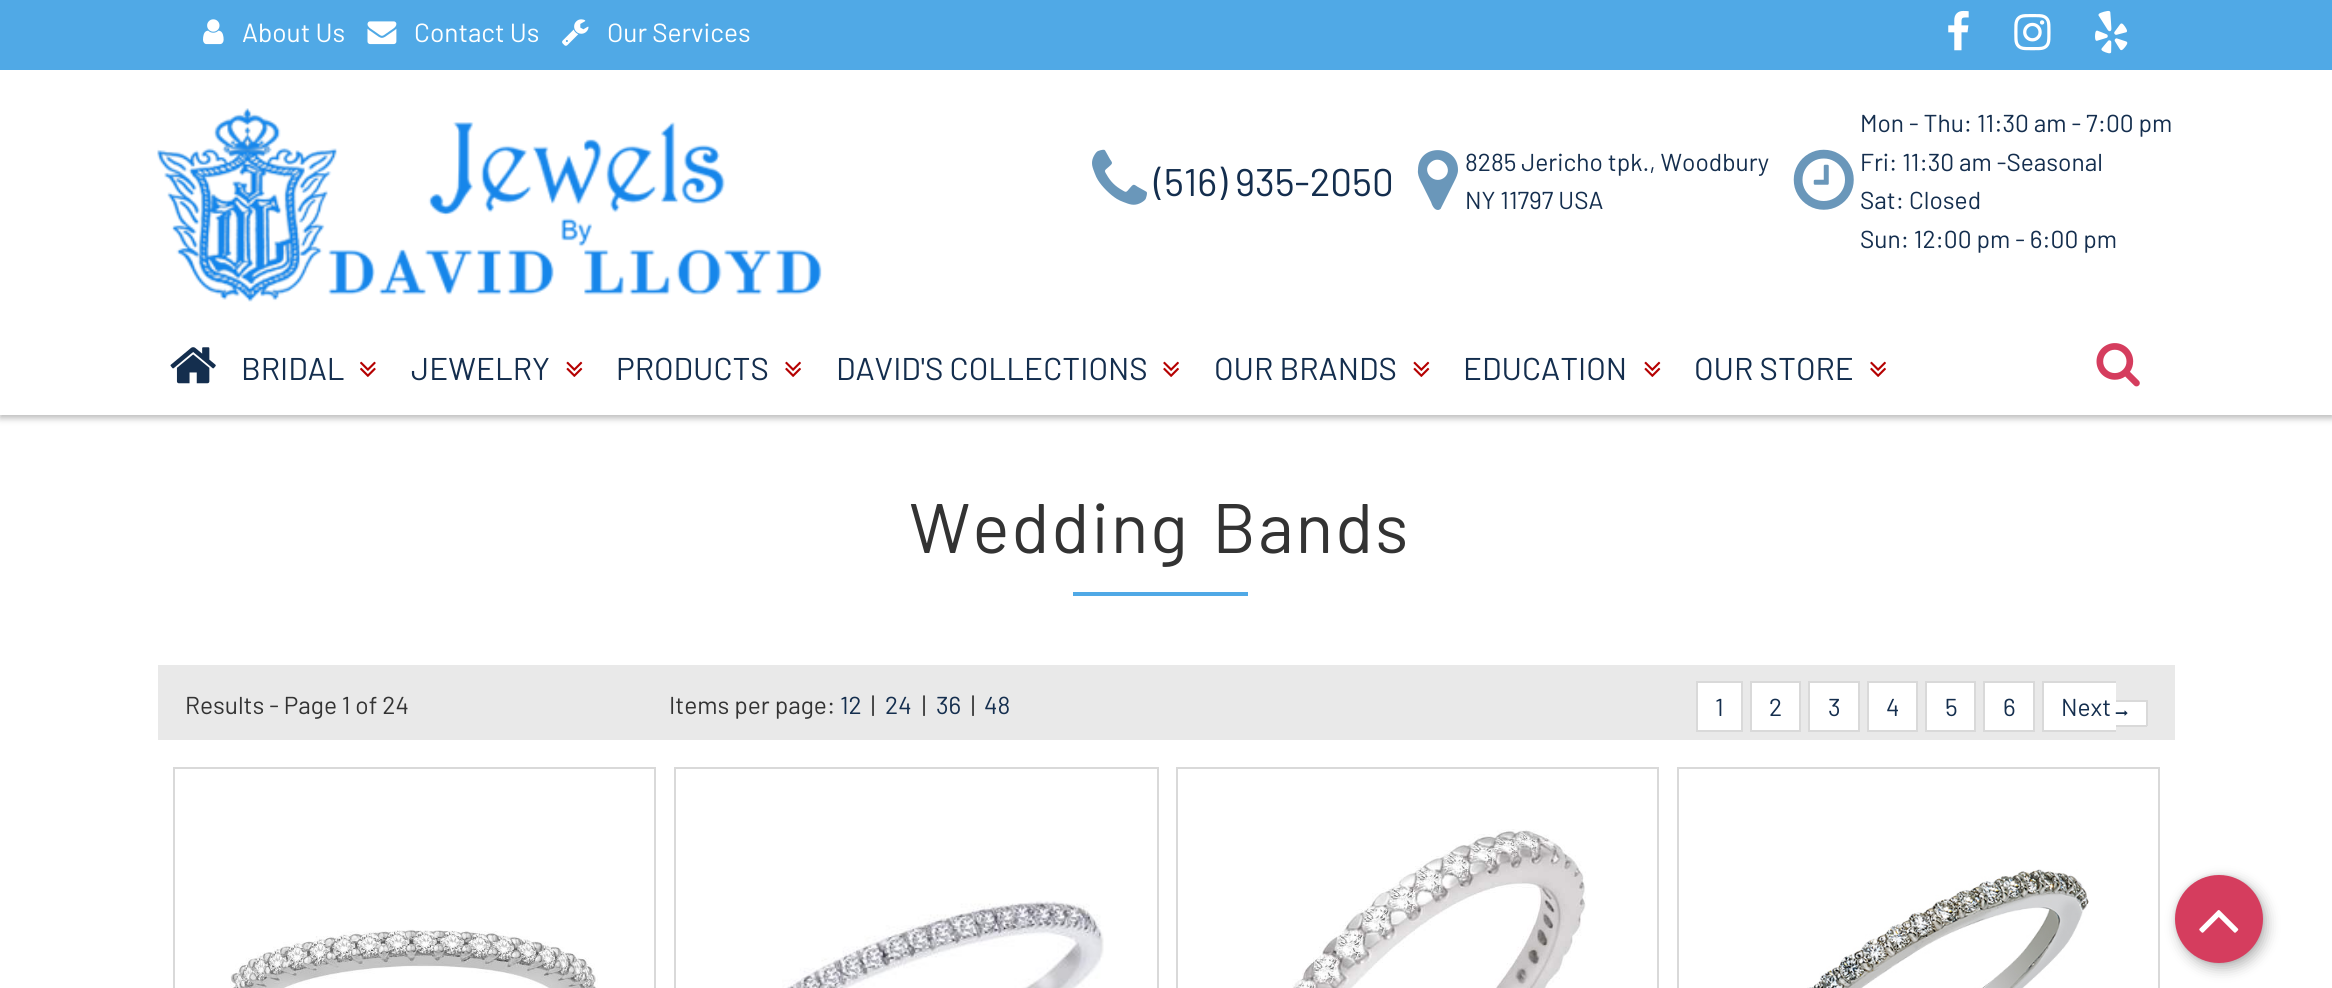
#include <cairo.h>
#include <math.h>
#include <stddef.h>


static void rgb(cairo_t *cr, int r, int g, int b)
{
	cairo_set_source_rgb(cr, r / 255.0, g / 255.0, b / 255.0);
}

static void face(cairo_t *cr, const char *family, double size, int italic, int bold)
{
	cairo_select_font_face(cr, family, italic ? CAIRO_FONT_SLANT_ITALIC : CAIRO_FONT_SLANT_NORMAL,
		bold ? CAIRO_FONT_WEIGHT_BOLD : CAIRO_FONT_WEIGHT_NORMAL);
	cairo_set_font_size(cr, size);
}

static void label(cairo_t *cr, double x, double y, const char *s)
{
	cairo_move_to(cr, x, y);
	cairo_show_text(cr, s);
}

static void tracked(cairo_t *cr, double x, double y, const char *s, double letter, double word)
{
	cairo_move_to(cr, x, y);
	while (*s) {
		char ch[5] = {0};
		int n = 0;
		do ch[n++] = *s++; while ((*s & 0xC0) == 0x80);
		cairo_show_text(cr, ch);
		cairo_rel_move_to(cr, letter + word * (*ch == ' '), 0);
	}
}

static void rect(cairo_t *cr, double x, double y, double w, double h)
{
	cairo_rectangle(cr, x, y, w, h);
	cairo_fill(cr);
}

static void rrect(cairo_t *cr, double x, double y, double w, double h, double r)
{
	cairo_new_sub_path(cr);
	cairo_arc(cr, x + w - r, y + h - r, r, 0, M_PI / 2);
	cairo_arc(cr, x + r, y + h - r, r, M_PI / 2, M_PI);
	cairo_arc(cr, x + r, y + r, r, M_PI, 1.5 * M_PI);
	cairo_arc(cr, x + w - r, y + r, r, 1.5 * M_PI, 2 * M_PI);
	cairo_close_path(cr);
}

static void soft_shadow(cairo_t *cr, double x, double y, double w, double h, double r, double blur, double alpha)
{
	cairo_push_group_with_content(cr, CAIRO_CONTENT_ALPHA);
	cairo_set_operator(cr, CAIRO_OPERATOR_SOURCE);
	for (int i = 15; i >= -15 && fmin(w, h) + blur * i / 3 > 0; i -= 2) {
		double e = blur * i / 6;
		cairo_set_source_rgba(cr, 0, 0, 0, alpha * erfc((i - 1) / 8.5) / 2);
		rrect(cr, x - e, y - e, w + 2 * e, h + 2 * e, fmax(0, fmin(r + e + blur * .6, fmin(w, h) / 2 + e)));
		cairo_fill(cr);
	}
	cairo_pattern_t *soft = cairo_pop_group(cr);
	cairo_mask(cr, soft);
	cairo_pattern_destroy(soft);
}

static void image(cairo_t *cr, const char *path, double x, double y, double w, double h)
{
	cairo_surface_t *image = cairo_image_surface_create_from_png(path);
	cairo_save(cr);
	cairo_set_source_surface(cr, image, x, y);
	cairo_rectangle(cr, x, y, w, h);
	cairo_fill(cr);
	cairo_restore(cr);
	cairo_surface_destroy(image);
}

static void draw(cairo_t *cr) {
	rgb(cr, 255, 255, 255);
	cairo_paint(cr);
	rgb(cr, 183, 183, 183);
	soft_shadow(cr, 0, 4, 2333, 414, 0, 3.5, 1);
	rgb(cr, 80, 169, 230);
	rect(cr, 0, 0, 2332, 70);
	image(cr, "image0.png", 203, 19, 21, 26);
	face(cr, "Barlow", 26.25, 0, 0);
	rgb(cr, 255, 255, 255);
	label(cr, 242, 42, "About Us");
	image(cr, "image1.png", 367, 21, 30, 24);
	label(cr, 414, 42, "Contact Us");
	image(cr, "image2.png", 562, 19, 27, 27);
	label(cr, 607, 42, "Our Services");
	image(cr, "image3.png", 1948, 10, 21, 41);
	image(cr, "image4.png", 2014, 14, 37, 37);
	image(cr, "image5.png", 2095, 10, 33, 44);
	rect(cr, 0, 70, 2332, 345);
	image(cr, "image6.png", 157, 108, 665, 194);
	image(cr, "image7.png", 1092, 149, 55, 56);
	face(cr, "Barlow", 38.5, 0, 0);
	rgb(cr, 20, 46, 78);
	label(cr, 1154, 196, "(516) 935-2050");
	rgb(cr, 106, 151, 186);
	cairo_new_path(cr);
	cairo_move_to(cr, 1445, 177);
	cairo_curve_to(cr, 1454, 168, 1440, 153, 1430, 163);
	cairo_curve_to(cr, 1421, 172, 1435, 186, 1445, 177);
	cairo_close_path(cr);
	cairo_move_to(cr, 1458, 170);
	cairo_curve_to(cr, 1458, 174, 1456, 178, 1454, 182);
	cairo_line_to(cr, 1441, 208);
	cairo_curve_to(cr, 1441, 209, 1439, 210, 1438, 210);
	cairo_curve_to(cr, 1434, 210, 1432, 205, 1431, 202);
	cairo_line_to(cr, 1426, 192);
	cairo_curve_to(cr, 1423, 185, 1417, 177, 1418, 170);
	cairo_curve_to(cr, 1418, 143, 1458, 144, 1458, 170);
	cairo_close_path(cr);
	cairo_fill(cr);
	face(cr, "Barlow", 24.5, 0, 0);
	rgb(cr, 20, 46, 78);
	label(cr, 1465, 171, "8285 Jericho tpk., Woodbury");
	label(cr, 1465, 209, "NY 11797 USA");
	image(cr, "image8.png", 1793, 149, 61, 61);
	label(cr, 1860, 132, "Mon - Thu: 11:30 am - 7:00 pm");
	label(cr, 1860, 171, "Fri: 11:30 am -Seasonal");
	label(cr, 1860, 209, "Sat: Closed");
	label(cr, 1860, 248, "Sun: 12:00 pm - 6:00 pm");
	image(cr, "image9.png", 170, 347, 46, 37);
	face(cr, "Barlow", 31.5, 0, 0);
	label(cr, 241, 380, "BRIDAL");
	image(cr, "image10.png", 360, 361, 16, 16);
	label(cr, 411, 380, "JEWELRY");
	image(cr, "image11.png", 566, 361, 17, 16);
	label(cr, 616, 380, "PRODUCTS");
	image(cr, "image12.png", 785, 361, 16, 16);
	label(cr, 836, 380, "DAVID'S COLLECTIONS");
	image(cr, "image12.png", 1163, 361, 16, 16);
	label(cr, 1214, 380, "OUR BRANDS");
	image(cr, "image11.png", 1413, 361, 17, 16);
	label(cr, 1463, 380, "EDUCATION");
	image(cr, "image11.png", 1644, 361, 17, 16);
	label(cr, 1694, 380, "OUR STORE");
	image(cr, "image12.png", 1870, 361, 16, 16);
	image(cr, "image13.png", 2096, 343, 44, 44);
	face(cr, "Barlow", 70, 0, 0);
	rgb(cr, 51, 51, 51);
	tracked(cr, 909, 553, "Wedding Bands", 1.75, 7);
	rgb(cr, 80, 169, 230);
	rect(cr, 1073, 592, 175, 4);
	rgb(cr, 233, 233, 233);
	rect(cr, 158, 665, 2017, 75);
	face(cr, "Barlow", 24.5, 0, 0);
	rgb(cr, 51, 51, 51);
	label(cr, 185, 714, "Results - Page 1 of 24");
	label(cr, 669, 714, "Items per page:");
	rgb(cr, 20, 46, 78);
	label(cr, 840, 714, "12");
	rgb(cr, 51, 51, 51);
	label(cr, 871, 714, "|");
	rgb(cr, 20, 46, 78);
	label(cr, 885, 714, "24");
	rgb(cr, 51, 51, 51);
	label(cr, 922, 714, "|");
	rgb(cr, 20, 46, 78);
	label(cr, 936, 714, "36");
	rgb(cr, 51, 51, 51);
	label(cr, 971, 714, "|");
	rgb(cr, 20, 46, 78);
	label(cr, 984, 714, "48");
	rgb(cr, 255, 255, 255);
	cairo_rectangle(cr, 1697, 682, 45, 49);
	cairo_fill_preserve(cr);
	rgb(cr, 217, 217, 217);
	cairo_stroke(cr);
	rgb(cr, 20, 46, 78);
	label(cr, 1715, 716, "1");
	rgb(cr, 255, 255, 255);
	cairo_rectangle(cr, 1751, 682, 49, 49);
	cairo_fill_preserve(cr);
	rgb(cr, 217, 217, 217);
	cairo_stroke(cr);
	rgb(cr, 20, 46, 78);
	label(cr, 1769, 716, "2");
	rgb(cr, 255, 255, 255);
	cairo_rectangle(cr, 1809, 682, 50, 49);
	cairo_fill_preserve(cr);
	rgb(cr, 217, 217, 217);
	cairo_stroke(cr);
	rgb(cr, 20, 46, 78);
	label(cr, 1828, 716, "3");
	rgb(cr, 255, 255, 255);
	cairo_rectangle(cr, 1868, 682, 49, 49);
	cairo_fill_preserve(cr);
	rgb(cr, 217, 217, 217);
	cairo_stroke(cr);
	rgb(cr, 20, 46, 78);
	label(cr, 1886, 716, "4");
	rgb(cr, 255, 255, 255);
	cairo_rectangle(cr, 1926, 682, 49, 49);
	cairo_fill_preserve(cr);
	rgb(cr, 217, 217, 217);
	cairo_stroke(cr);
	rgb(cr, 20, 46, 78);
	label(cr, 1945, 716, "5");
	rgb(cr, 255, 255, 255);
	cairo_rectangle(cr, 1984, 682, 50, 49);
	cairo_fill_preserve(cr);
	rgb(cr, 217, 217, 217);
	cairo_stroke(cr);
	rgb(cr, 20, 46, 78);
	label(cr, 2003, 716, "6");
	rgb(cr, 255, 255, 255);
	rect(cr, 2044, 683, 72, 47);
	rgb(cr, 217, 217, 217);
	rect(cr, 2042, 681, 74, 2);
	rect(cr, 2042, 730, 74, 2);
	rect(cr, 2042, 681, 2, 51);
	rgb(cr, 255, 255, 255);
	rect(cr, 2116, 702, 30, 23);
	rgb(cr, 217, 217, 217);
	rect(cr, 2116, 700, 31, 2);
	rect(cr, 2146, 700, 2, 26);
	rect(cr, 2116, 725, 31, 2);
	rgb(cr, 20, 46, 78);
	label(cr, 2061, 716, "Next");
	image(cr, "image14.png", 2115, 710, 13, 6);
	cairo_rectangle(cr, 174, 768, 481, 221);
	rgb(cr, 217, 217, 217);
	cairo_stroke(cr);
	image(cr, "image15.png", 230, 929, 368, 59);
	cairo_rectangle(cr, 675, 768, 483, 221);
	cairo_stroke(cr);
	image(cr, "image16.png", 782, 900, 322, 88);
	cairo_rectangle(cr, 1177, 768, 481, 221);
	cairo_stroke(cr);
	image(cr, "image17.png", 1292, 829, 294, 159);
	cairo_rectangle(cr, 1678, 768, 481, 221);
	cairo_stroke(cr);
	image(cr, "image18.png", 1807, 869, 282, 119);
	rgb(cr, 0, 0, 0);
	soft_shadow(cr, 2179, 880, 87, 88, 43.5, 7, 0.3);
	soft_shadow(cr, 2175, 875, 88, 88, 44, 2, 0.12);
	rgb(cr, 213, 61, 94);
	cairo_arc(cr, 2219, 919, 44, 0, 2 * M_PI);
	cairo_fill(cr);
	image(cr, "image19.png", 2199, 910, 40, 23);
}

int main(void) {
	cairo_surface_t *surface = cairo_image_surface_create(CAIRO_FORMAT_RGB24, 2332, 988);
	cairo_t *cr = cairo_create(surface);
	cairo_font_options_t *options = cairo_font_options_create();
	cairo_font_options_set_hint_metrics(options, CAIRO_HINT_METRICS_OFF);
	cairo_font_options_set_hint_style(options, CAIRO_HINT_STYLE_NONE);
	cairo_set_font_options(cr, options);
	cairo_set_miter_limit(cr, 4);
	draw(cr);
	cairo_surface_write_to_png(surface, "render.png");
	cairo_font_options_destroy(options);
	cairo_destroy(cr);
	cairo_surface_destroy(surface);
	return 0;
}
